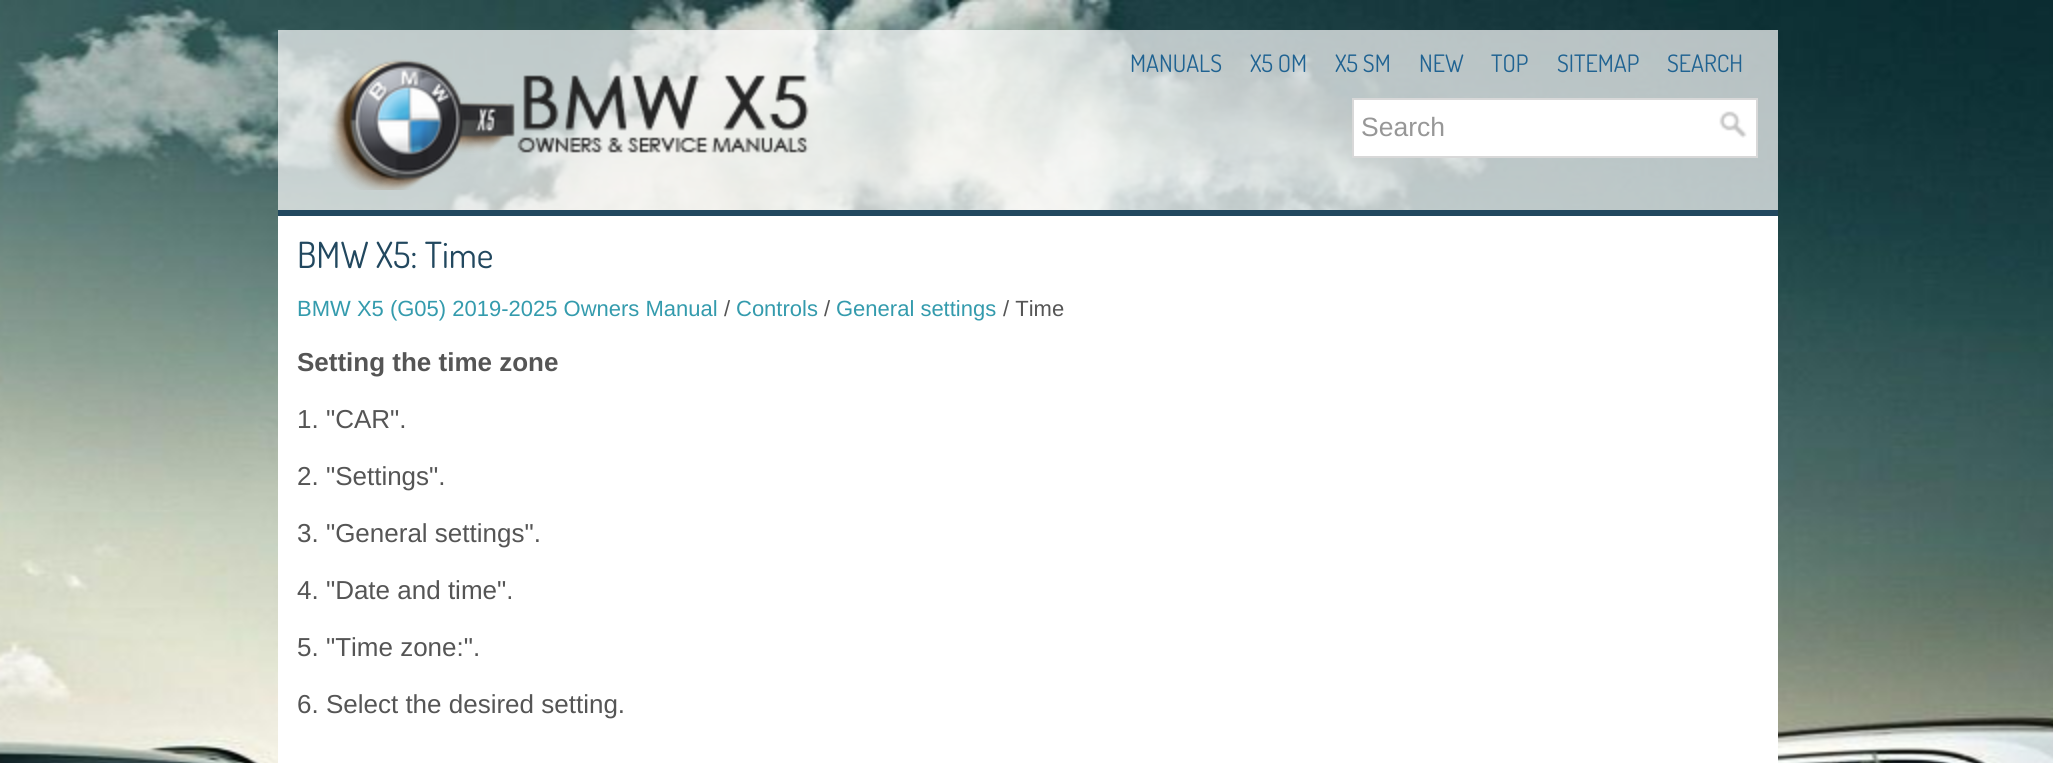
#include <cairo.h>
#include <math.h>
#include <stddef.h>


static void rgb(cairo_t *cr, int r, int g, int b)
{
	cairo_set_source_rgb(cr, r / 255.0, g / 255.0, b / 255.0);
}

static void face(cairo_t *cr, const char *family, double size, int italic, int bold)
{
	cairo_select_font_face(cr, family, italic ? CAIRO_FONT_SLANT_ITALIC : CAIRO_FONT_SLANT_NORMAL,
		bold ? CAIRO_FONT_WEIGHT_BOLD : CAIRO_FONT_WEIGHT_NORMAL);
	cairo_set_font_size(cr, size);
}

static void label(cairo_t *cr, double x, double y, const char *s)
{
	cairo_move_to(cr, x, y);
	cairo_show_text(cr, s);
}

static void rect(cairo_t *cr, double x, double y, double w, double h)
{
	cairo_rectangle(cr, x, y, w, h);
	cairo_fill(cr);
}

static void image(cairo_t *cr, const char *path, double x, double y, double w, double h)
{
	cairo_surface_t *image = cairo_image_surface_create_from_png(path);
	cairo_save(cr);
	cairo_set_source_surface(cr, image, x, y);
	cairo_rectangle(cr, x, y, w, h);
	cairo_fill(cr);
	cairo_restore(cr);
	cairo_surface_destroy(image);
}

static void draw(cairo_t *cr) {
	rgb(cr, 255, 255, 255);
	cairo_paint(cr);
	image(cr, "image0.png", 0, 0, 2053, 763);
	cairo_set_source_rgba(cr, 1, 1, 1, 0.7);
	rect(cr, 278, 30, 1500, 180);
	rgb(cr, 34, 72, 95);
	rect(cr, 278, 210, 1500, 6);
	image(cr, "image1.png", 327, 59, 482, 131);
	face(cr, "Dosis", 24, 0, 0);
	rgb(cr, 32, 99, 146);
	label(cr, 1130, 72, "MANUALS");
	label(cr, 1250, 72, "X5 OM");
	label(cr, 1335, 72, "X5 SM");
	label(cr, 1419, 72, "NEW");
	label(cr, 1491, 72, "TOP");
	label(cr, 1557, 72, "SITEMAP");
	label(cr, 1667, 72, "SEARCH");
	rgb(cr, 255, 255, 255);
	cairo_rectangle(cr, 1353, 99, 404, 58);
	cairo_fill_preserve(cr);
	rgb(cr, 216, 216, 216);
	cairo_stroke(cr);
	face(cr, "Liberation Sans", 26.5, 0, 0);
	rgb(cr, 151, 151, 151);
	label(cr, 1361, 136, "Search");
	image(cr, "image2.png", 1719, 111, 28, 27);
	rgb(cr, 255, 255, 255);
	rect(cr, 278, 216, 1500, 547);
	face(cr, "Dosis", 36, 0, 0);
	rgb(cr, 34, 72, 95);
	label(cr, 297, 268, "BMW X5: Time");
	face(cr, "Liberation Sans", 22, 0, 0);
	rgb(cr, 52, 155, 173);
	label(cr, 297, 316, "BMW X5 (G05) 2019-2025 Owners Manual");
	rgb(cr, 85, 85, 85);
	label(cr, 724, 316, "/");
	rgb(cr, 52, 155, 173);
	label(cr, 736, 316, "Controls");
	rgb(cr, 85, 85, 85);
	label(cr, 824, 316, "/");
	rgb(cr, 52, 155, 173);
	label(cr, 836, 316, "General settings");
	rgb(cr, 85, 85, 85);
	label(cr, 1003, 316, "/ Time");
	face(cr, "Liberation Sans", 26, 0, 1);
	label(cr, 297, 371, "Setting the time zone");
	face(cr, "Liberation Sans", 26, 0, 0);
	label(cr, 297, 428, "1. \"CAR\".");
	label(cr, 297, 485, "2. \"Settings\".");
	label(cr, 297, 542, "3. \"General settings\".");
	label(cr, 297, 599, "4. \"Date and time\".");
	label(cr, 297, 656, "5. \"Time zone:\".");
	label(cr, 297, 713, "6. Select the desired setting.");
}

int main(void) {
	cairo_surface_t *surface = cairo_image_surface_create(CAIRO_FORMAT_RGB24, 2053, 763);
	cairo_t *cr = cairo_create(surface);
	cairo_font_options_t *options = cairo_font_options_create();
	cairo_font_options_set_hint_metrics(options, CAIRO_HINT_METRICS_OFF);
	cairo_font_options_set_hint_style(options, CAIRO_HINT_STYLE_NONE);
	cairo_set_font_options(cr, options);
	cairo_set_miter_limit(cr, 4);
	draw(cr);
	cairo_surface_write_to_png(surface, "render.png");
	cairo_font_options_destroy(options);
	cairo_destroy(cr);
	cairo_surface_destroy(surface);
	return 0;
}
